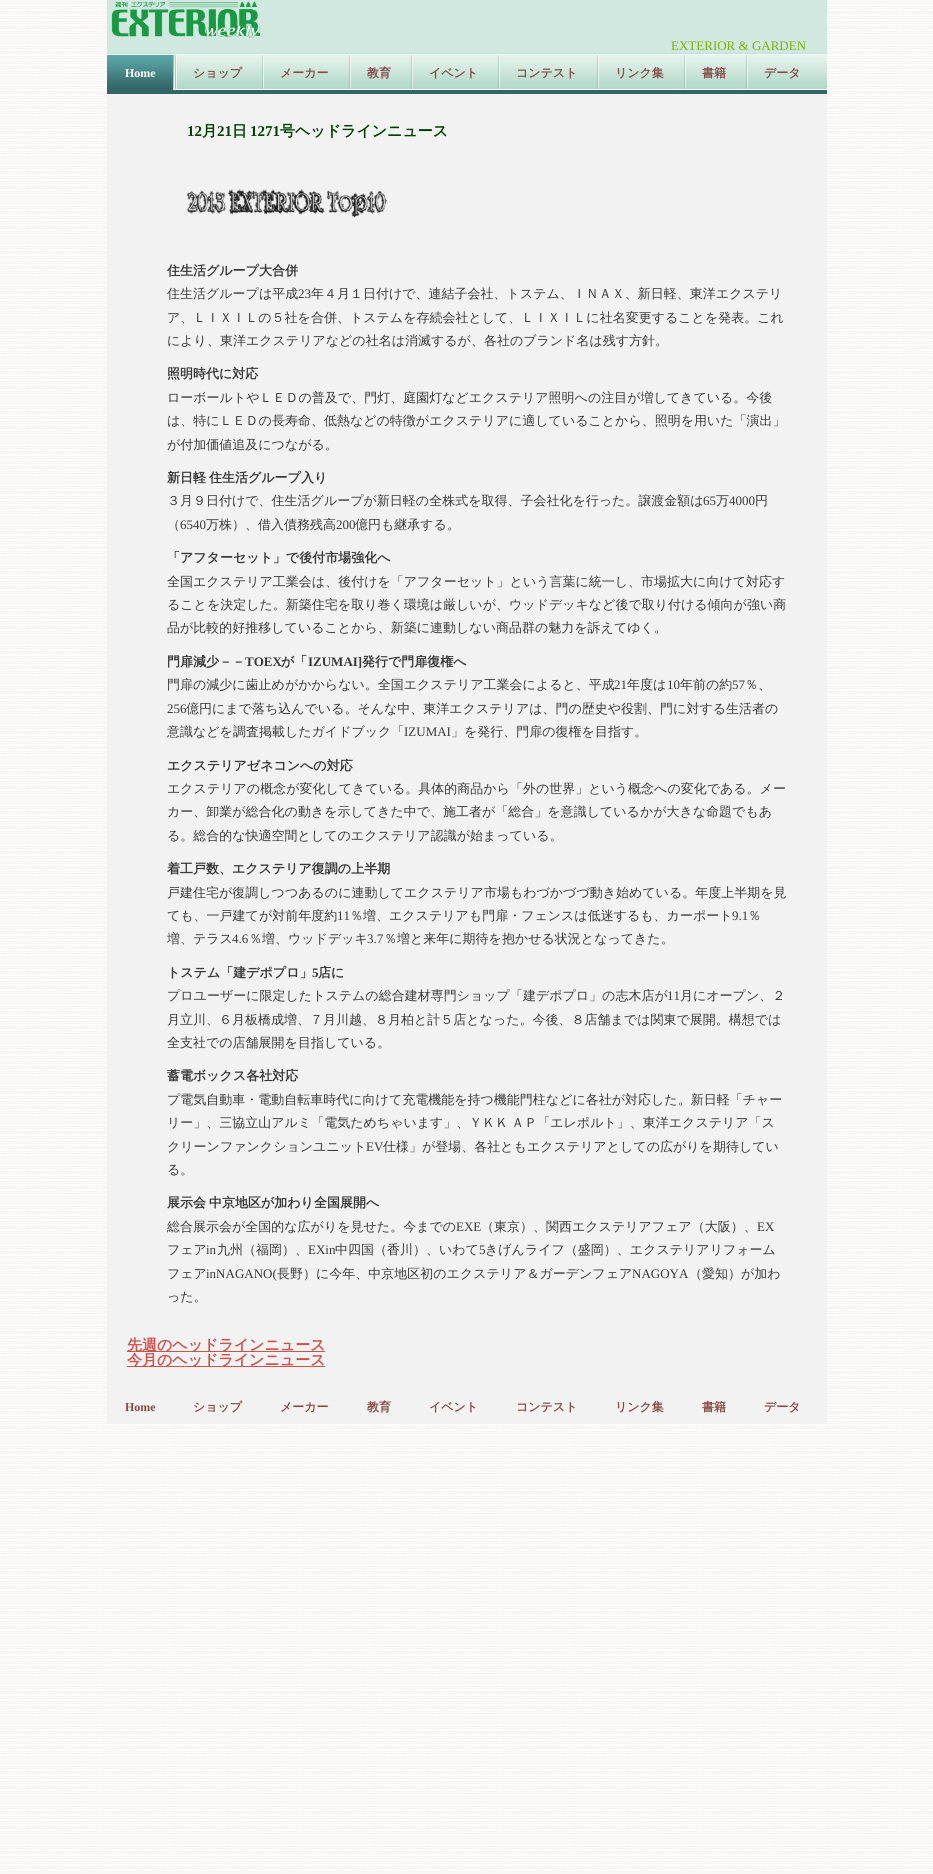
#include <cairo.h>
#include <math.h>
#include <stddef.h>


static void rgb(cairo_t *cr, int r, int g, int b)
{
	cairo_set_source_rgb(cr, r / 255.0, g / 255.0, b / 255.0);
}

static void face(cairo_t *cr, const char *family, double size, int italic, int bold)
{
	cairo_select_font_face(cr, family, italic ? CAIRO_FONT_SLANT_ITALIC : CAIRO_FONT_SLANT_NORMAL,
		bold ? CAIRO_FONT_WEIGHT_BOLD : CAIRO_FONT_WEIGHT_NORMAL);
	cairo_set_font_size(cr, size);
}

static void label(cairo_t *cr, double x, double y, const char *s)
{
	cairo_move_to(cr, x, y);
	cairo_show_text(cr, s);
}

static void tracked(cairo_t *cr, double x, double y, const char *s, double letter, double word)
{
	cairo_move_to(cr, x, y);
	while (*s) {
		char ch[5] = {0};
		int n = 0;
		do ch[n++] = *s++; while ((*s & 0xC0) == 0x80);
		cairo_show_text(cr, ch);
		cairo_rel_move_to(cr, letter + word * (*ch == ' '), 0);
	}
}

static void rect(cairo_t *cr, double x, double y, double w, double h)
{
	cairo_rectangle(cr, x, y, w, h);
	cairo_fill(cr);
}

static void image(cairo_t *cr, const char *path, double x, double y, double w, double h)
{
	cairo_surface_t *image = cairo_image_surface_create_from_png(path);
	cairo_save(cr);
	cairo_set_source_surface(cr, image, x, y);
	cairo_rectangle(cr, x, y, w, h);
	cairo_fill(cr);
	cairo_restore(cr);
	cairo_surface_destroy(image);
}

static void draw(cairo_t *cr) {
	rgb(cr, 255, 255, 255);
	cairo_paint(cr);
	image(cr, "image0.png", 0, 0, 933, 1874);
	rgb(cr, 242, 242, 242);
	rect(cr, 107, 94, 720, 1330);
	rgb(cr, 208, 232, 223);
	rect(cr, 107, 0, 720, 53);
	image(cr, "image1.png", 111, 1, 150, 37);
	face(cr, "Liberation Serif", 13, 0, 0);
	rgb(cr, 121, 179, 11);
	label(cr, 671, 50, "EXTERIOR & GARDEN");
	image(cr, "image2.png", 107, 54, 720, 36);
	rgb(cr, 192, 226, 212);
	rect(cr, 107, 53, 720, 1);
	rgb(cr, 51, 102, 102);
	rect(cr, 107, 90, 720, 4);
	image(cr, "image3.png", 107, 55, 68, 35);
	face(cr, "Liberation Serif", 12, 0, 1);
	rgb(cr, 255, 255, 255);
	label(cr, 125, 77, "Home");
	image(cr, "image4.png", 175, 55, 2, 34);
	face(cr, "WenQuanYi Zen Hei", 12, 0, 1);
	rgb(cr, 135, 75, 70);
	label(cr, 193, 77, "ショップ");
	image(cr, "image4.png", 262, 55, 2, 34);
	label(cr, 280, 77, "メーカー");
	image(cr, "image4.png", 349, 55, 2, 34);
	label(cr, 367, 77, "教育");
	image(cr, "image4.png", 411, 55, 2, 34);
	label(cr, 429, 77, "イベント");
	image(cr, "image4.png", 498, 55, 2, 34);
	label(cr, 516, 77, "コンテスト");
	image(cr, "image4.png", 597, 55, 2, 34);
	label(cr, 615, 77, "リンク集");
	image(cr, "image4.png", 684, 55, 2, 34);
	label(cr, 702, 77, "書籍");
	image(cr, "image4.png", 746, 55, 2, 34);
	label(cr, 764, 77, "データ");
	face(cr, "Liberation Serif", 15, 0, 1);
	rgb(cr, 0, 64, 0);
	label(cr, 187, 136, "12");
	face(cr, "WenQuanYi Zen Hei", 15, 0, 1);
	label(cr, 202, 136, "月");
	face(cr, "Liberation Serif", 15, 0, 1);
	label(cr, 217, 136, "21");
	face(cr, "WenQuanYi Zen Hei", 15, 0, 1);
	label(cr, 232, 136, "日");
	face(cr, "Liberation Serif", 15, 0, 1);
	label(cr, 250, 136, "1271");
	face(cr, "WenQuanYi Zen Hei", 15, 0, 1);
	label(cr, 280, 136, "号ヘッドラインニュース");
	image(cr, "image5.png", 187, 189, 200, 29);
	face(cr, "WenQuanYi Zen Hei", 13, 0, 1);
	rgb(cr, 57, 57, 57);
	label(cr, 167, 275, "住生活グループ大合併");
	face(cr, "WenQuanYi Zen Hei Medium", 13, 0, 0);
	label(cr, 167, 298, "住生活グループは平成");
	face(cr, "Liberation Serif", 13, 0, 0);
	label(cr, 298, 298, "23");
	face(cr, "WenQuanYi Zen Hei Medium", 13, 0, 0);
	label(cr, 311, 298, "年４月１日付けで、連結子会社、トステム、ＩＮＡＸ、新日軽、東洋エクステリ");
	label(cr, 167, 322, "ア、ＬＩＸＩＬの５社を合併、トステムを存続会社として、ＬＩＸＩＬに社名変更することを発表。これ");
	label(cr, 167, 345, "により、東洋エクステリアなどの社名は消滅するが、各社のブランド名は残す方針。");
	face(cr, "WenQuanYi Zen Hei", 13, 0, 1);
	label(cr, 167, 378, "照明時代に対応");
	face(cr, "WenQuanYi Zen Hei Medium", 13, 0, 0);
	label(cr, 167, 402, "ローボールトやＬＥＤの普及で、門灯、庭園灯などエクステリア照明への注目が増してきている。今後");
	label(cr, 167, 425, "は、特にＬＥＤの長寿命、低熱などの特徴がエクステリアに適していることから、照明を用いた「演出」");
	label(cr, 167, 449, "が付加価値追及につながる。");
	face(cr, "WenQuanYi Zen Hei", 13, 0, 1);
	label(cr, 167, 482, "新日軽");
	label(cr, 209, 482, "住生活グループ入り");
	face(cr, "WenQuanYi Zen Hei Medium", 13, 0, 0);
	label(cr, 167, 505, "３月９日付けで、住生活グループが新日軽の全株式を取得、子会社化を行った。譲渡金額は");
	face(cr, "Liberation Serif", 13, 0, 0);
	label(cr, 703, 505, "65");
	face(cr, "WenQuanYi Zen Hei Medium", 13, 0, 0);
	label(cr, 716, 505, "万");
	face(cr, "Liberation Serif", 13, 0, 0);
	label(cr, 729, 505, "4000");
	face(cr, "WenQuanYi Zen Hei Medium", 13, 0, 0);
	label(cr, 755, 505, "円");
	label(cr, 167, 529, "（");
	face(cr, "Liberation Serif", 13, 0, 0);
	label(cr, 180, 529, "6540");
	face(cr, "WenQuanYi Zen Hei Medium", 13, 0, 0);
	label(cr, 206, 529, "万株）、借入債務残高");
	face(cr, "Liberation Serif", 13, 0, 0);
	label(cr, 336, 529, "200");
	face(cr, "WenQuanYi Zen Hei Medium", 13, 0, 0);
	label(cr, 355, 529, "億円も継承する。");
	face(cr, "WenQuanYi Zen Hei", 13, 0, 1);
	label(cr, 167, 562, "「アフターセット」で後付市場強化へ");
	face(cr, "WenQuanYi Zen Hei Medium", 13, 0, 0);
	label(cr, 167, 586, "全国エクステリア工業会は、後付けを「アフターセット」という言葉に統一し、市場拡大に向けて対応す");
	label(cr, 167, 609, "ることを決定した。新築住宅を取り巻く環境は厳しいが、ウッドデッキなど後で取り付ける傾向が強い商");
	label(cr, 167, 632, "品が比較的好推移していることから、新築に連動しない商品群の魅力を訴えてゆく。");
	face(cr, "WenQuanYi Zen Hei", 13, 0, 1);
	label(cr, 167, 666, "門扉減少－－");
	face(cr, "Liberation Serif", 13, 0, 1);
	label(cr, 245, 666, "TOEX");
	face(cr, "WenQuanYi Zen Hei", 13, 0, 1);
	label(cr, 281, 666, "が「");
	face(cr, "Liberation Serif", 13, 0, 1);
	label(cr, 308, 666, "IZUMAI]");
	face(cr, "WenQuanYi Zen Hei", 13, 0, 1);
	label(cr, 362, 666, "発行で門扉復権へ");
	face(cr, "WenQuanYi Zen Hei Medium", 13, 0, 0);
	label(cr, 167, 689, "門扉の減少に歯止めがかからない。全国エクステリア工業会によると、平成");
	face(cr, "Liberation Serif", 13, 0, 0);
	label(cr, 614, 689, "21");
	face(cr, "WenQuanYi Zen Hei Medium", 13, 0, 0);
	label(cr, 627, 689, "年度は");
	face(cr, "Liberation Serif", 13, 0, 0);
	label(cr, 667, 689, "10");
	face(cr, "WenQuanYi Zen Hei Medium", 13, 0, 0);
	label(cr, 680, 689, "年前の約");
	face(cr, "Liberation Serif", 13, 0, 0);
	label(cr, 732, 689, "57");
	face(cr, "WenQuanYi Zen Hei Medium", 13, 0, 0);
	label(cr, 745, 689, "％、");
	face(cr, "Liberation Serif", 13, 0, 0);
	label(cr, 167, 713, "256");
	face(cr, "WenQuanYi Zen Hei Medium", 13, 0, 0);
	label(cr, 186, 713, "億円にまで落ち込んでいる。そんな中、東洋エクステリアは、門の歴史や役割、門に対する生活者の");
	label(cr, 167, 736, "意識などを調査掲載したガイドブック「");
	face(cr, "Liberation Serif", 13, 0, 0);
	label(cr, 404, 736, "IZUMAI");
	face(cr, "WenQuanYi Zen Hei Medium", 13, 0, 0);
	label(cr, 451, 736, "」を発行、門扉の復権を目指す。");
	face(cr, "WenQuanYi Zen Hei", 13, 0, 1);
	label(cr, 167, 770, "エクステリアゼネコンへの対応");
	face(cr, "WenQuanYi Zen Hei Medium", 13, 0, 0);
	label(cr, 167, 793, "エクステリアの概念が変化してきている。具体的商品から「外の世界」という概念への変化である。メー");
	label(cr, 167, 816, "カー、卸業が総合化の動きを示してきた中で、施工者が「総合」を意識しているかが大きな命題でもあ");
	label(cr, 167, 840, "る。総合的な快適空間としてのエクステリア認識が始まっている。");
	face(cr, "WenQuanYi Zen Hei", 13, 0, 1);
	label(cr, 167, 873, "着工戸数、エクステリア復調の上半期");
	face(cr, "WenQuanYi Zen Hei Medium", 13, 0, 0);
	label(cr, 167, 897, "戸建住宅が復調しつつあるのに連動してエクステリア市場もわづかづづ動き始めている。年度上半期を見");
	label(cr, 167, 920, "ても、一戸建てが対前年度約");
	face(cr, "Liberation Serif", 13, 0, 0);
	label(cr, 337, 920, "11");
	face(cr, "WenQuanYi Zen Hei Medium", 13, 0, 0);
	label(cr, 350, 920, "％増、エクステリアも門扉・フェンスは低迷するも、カーポート");
	face(cr, "Liberation Serif", 13, 0, 0);
	label(cr, 732, 920, "9.1");
	face(cr, "WenQuanYi Zen Hei Medium", 13, 0, 0);
	label(cr, 748, 920, "％");
	label(cr, 167, 943, "増、テラス");
	face(cr, "Liberation Serif", 13, 0, 0);
	label(cr, 232, 943, "4.6");
	face(cr, "WenQuanYi Zen Hei Medium", 13, 0, 0);
	label(cr, 249, 943, "％増、ウッドデッキ");
	face(cr, "Liberation Serif", 13, 0, 0);
	label(cr, 367, 943, "3.7");
	face(cr, "WenQuanYi Zen Hei Medium", 13, 0, 0);
	label(cr, 384, 943, "％増と来年に期待を抱かせる状況となってきた。");
	face(cr, "WenQuanYi Zen Hei", 13, 0, 1);
	label(cr, 167, 977, "トステム「建デポプロ」");
	face(cr, "Liberation Serif", 13, 0, 1);
	label(cr, 312, 977, "5");
	face(cr, "WenQuanYi Zen Hei", 13, 0, 1);
	label(cr, 318, 977, "店に");
	face(cr, "WenQuanYi Zen Hei Medium", 13, 0, 0);
	label(cr, 167, 1000, "プロユーザーに限定したトステムの総合建材専門ショップ「建デポプロ」の志木店が");
	face(cr, "Liberation Serif", 13, 0, 0);
	label(cr, 667, 1000, "11");
	face(cr, "WenQuanYi Zen Hei Medium", 13, 0, 0);
	label(cr, 680, 1000, "月にオープン、２");
	label(cr, 167, 1024, "月立川、６月板橋成増、７月川越、８月柏と計５店となった。今後、８店舗までは関東で展開。構想では");
	label(cr, 167, 1047, "全支社での店舗展開を目指している。");
	face(cr, "WenQuanYi Zen Hei", 13, 0, 1);
	label(cr, 167, 1080, "蓄電ボックス各社対応");
	face(cr, "WenQuanYi Zen Hei Medium", 13, 0, 0);
	label(cr, 167, 1104, "プ電気自動車・電動自転車時代に向けて充電機能を持つ機能門柱などに各社が対応した。新日軽「チャー");
	tracked(cr, 167, 1127, "リー」、三協立山アルミ「電気ためちゃいます」、ＹＫＫ ＡＰ「エレポルト」、東洋エクステリア「ス", 0, -1);
	label(cr, 167, 1151, "クリーンファンクションユニット");
	face(cr, "Liberation Serif", 13, 0, 0);
	label(cr, 366, 1151, "EV");
	face(cr, "WenQuanYi Zen Hei Medium", 13, 0, 0);
	label(cr, 383, 1151, "仕様」が登場、各社ともエクステリアとしての広がりを期待してい");
	label(cr, 167, 1174, "る。");
	face(cr, "WenQuanYi Zen Hei", 13, 0, 1);
	label(cr, 167, 1207, "展示会");
	label(cr, 209, 1207, "中京地区が加わり全国展開へ");
	face(cr, "WenQuanYi Zen Hei Medium", 13, 0, 0);
	label(cr, 167, 1231, "総合展示会が全国的な広がりを見せた。今までの");
	face(cr, "Liberation Serif", 13, 0, 0);
	label(cr, 456, 1231, "EXE");
	face(cr, "WenQuanYi Zen Hei Medium", 13, 0, 0);
	label(cr, 481, 1231, "（東京）、関西エクステリアフェア（大阪）、");
	face(cr, "Liberation Serif", 13, 0, 0);
	label(cr, 757, 1231, "EX");
	face(cr, "WenQuanYi Zen Hei Medium", 13, 0, 0);
	label(cr, 167, 1254, "フェア");
	face(cr, "Liberation Serif", 13, 0, 0);
	label(cr, 206, 1254, "in");
	face(cr, "WenQuanYi Zen Hei Medium", 13, 0, 0);
	label(cr, 217, 1254, "九州（福岡）、");
	face(cr, "Liberation Serif", 13, 0, 0);
	label(cr, 308, 1254, "EXin");
	face(cr, "WenQuanYi Zen Hei Medium", 13, 0, 0);
	label(cr, 335, 1254, "中四国（香川）、いわて");
	face(cr, "Liberation Serif", 13, 0, 0);
	label(cr, 479, 1254, "5");
	face(cr, "WenQuanYi Zen Hei Medium", 13, 0, 0);
	label(cr, 485, 1254, "きげんライフ（盛岡）、エクステリアリフォーム");
	label(cr, 167, 1278, "フェア");
	face(cr, "Liberation Serif", 13, 0, 0);
	label(cr, 206, 1278, "inNAGANO(");
	face(cr, "WenQuanYi Zen Hei Medium", 13, 0, 0);
	label(cr, 277, 1278, "長野）に今年、中京地区初のエクステリア＆ガーデンフェア");
	face(cr, "Liberation Serif", 13, 0, 0);
	label(cr, 632, 1278, "NAGOYA");
	face(cr, "WenQuanYi Zen Hei Medium", 13, 0, 0);
	label(cr, 689, 1278, "（愛知）が加わ");
	label(cr, 167, 1301, "った。");
	rgb(cr, 205, 82, 79);
	rect(cr, 127, 1351, 198, 1);
	face(cr, "WenQuanYi Zen Hei", 15, 0, 1);
	label(cr, 127, 1350, "先週のヘッドラインニュース");
	rect(cr, 127, 1366, 198, 1);
	label(cr, 127, 1365, "今月のヘッドラインニュース");
	face(cr, "Liberation Serif", 12, 0, 1);
	rgb(cr, 135, 75, 70);
	label(cr, 125, 1411, "Home");
	face(cr, "WenQuanYi Zen Hei", 12, 0, 1);
	label(cr, 193, 1411, "ショップ");
	label(cr, 280, 1411, "メーカー");
	label(cr, 367, 1411, "教育");
	label(cr, 429, 1411, "イベント");
	label(cr, 516, 1411, "コンテスト");
	label(cr, 615, 1411, "リンク集");
	label(cr, 702, 1411, "書籍");
	label(cr, 764, 1411, "データ");
}

int main(void) {
	cairo_surface_t *surface = cairo_image_surface_create(CAIRO_FORMAT_RGB24, 933, 1874);
	cairo_t *cr = cairo_create(surface);
	cairo_font_options_t *options = cairo_font_options_create();
	cairo_font_options_set_hint_metrics(options, CAIRO_HINT_METRICS_OFF);
	cairo_font_options_set_hint_style(options, CAIRO_HINT_STYLE_NONE);
	cairo_set_font_options(cr, options);
	cairo_set_miter_limit(cr, 4);
	draw(cr);
	cairo_surface_write_to_png(surface, "render.png");
	cairo_font_options_destroy(options);
	cairo_destroy(cr);
	cairo_surface_destroy(surface);
	return 0;
}
